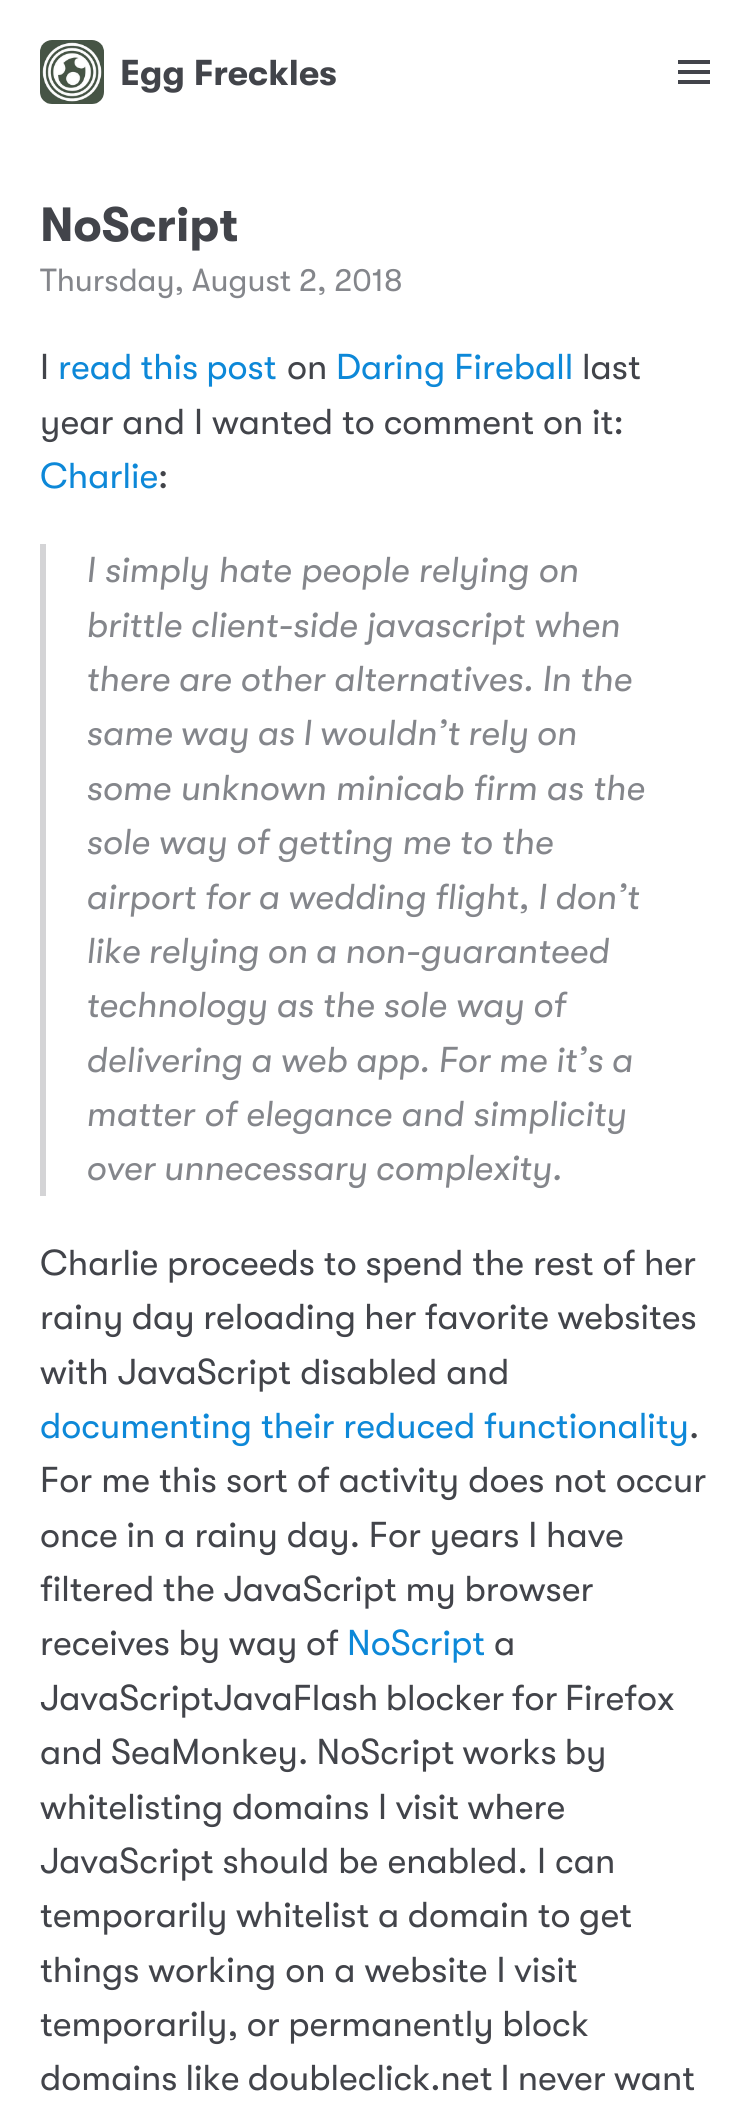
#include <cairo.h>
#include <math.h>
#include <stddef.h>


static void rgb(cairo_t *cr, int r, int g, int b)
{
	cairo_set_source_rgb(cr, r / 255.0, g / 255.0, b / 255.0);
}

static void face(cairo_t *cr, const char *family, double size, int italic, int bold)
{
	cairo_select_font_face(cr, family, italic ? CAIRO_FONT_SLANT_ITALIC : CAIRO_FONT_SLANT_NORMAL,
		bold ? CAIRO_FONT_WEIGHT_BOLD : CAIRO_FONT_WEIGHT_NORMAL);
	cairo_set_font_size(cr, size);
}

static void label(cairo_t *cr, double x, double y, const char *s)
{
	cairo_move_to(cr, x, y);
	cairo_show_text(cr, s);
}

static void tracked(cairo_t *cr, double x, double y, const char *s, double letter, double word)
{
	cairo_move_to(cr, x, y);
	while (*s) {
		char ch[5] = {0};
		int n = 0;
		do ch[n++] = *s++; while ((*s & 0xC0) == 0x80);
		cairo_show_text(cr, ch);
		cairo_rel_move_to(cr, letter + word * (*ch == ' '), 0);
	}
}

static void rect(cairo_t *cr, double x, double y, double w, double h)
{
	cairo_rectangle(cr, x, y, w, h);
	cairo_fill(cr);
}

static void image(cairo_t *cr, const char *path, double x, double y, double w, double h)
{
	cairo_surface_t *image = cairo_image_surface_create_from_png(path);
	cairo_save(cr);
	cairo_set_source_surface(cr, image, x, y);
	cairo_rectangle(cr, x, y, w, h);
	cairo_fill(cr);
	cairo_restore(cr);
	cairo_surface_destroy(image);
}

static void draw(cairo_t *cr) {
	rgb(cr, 255, 255, 255);
	cairo_paint(cr);
	image(cr, "image0.png", 40, 40, 64, 64);
	face(cr, "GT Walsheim", 36, 0, 1);
	rgb(cr, 66, 68, 74);
	label(cr, 120, 85, "Egg Freckles");
	rect(cr, 678, 60, 32, 4);
	rect(cr, 678, 70, 32, 4);
	rect(cr, 678, 80, 32, 4);
	face(cr, "GT Walsheim", 48, 0, 1);
	label(cr, 40, 241, "NoScript");
	face(cr, "GT Walsheim", 32, 0, 0);
	rgb(cr, 132, 134, 139);
	tracked(cr, 40, 291, "Thursday, August 2, 2018", 0, -0.5);
	face(cr, "GT Walsheim", 36, 0, 0);
	rgb(cr, 66, 68, 74);
	label(cr, 40, 379, "I");
	rgb(cr, 13, 136, 216);
	tracked(cr, 58, 379, "read this post", 0, -1);
	rgb(cr, 66, 68, 74);
	label(cr, 287, 379, "on");
	rgb(cr, 13, 136, 216);
	label(cr, 336, 379, "Daring Fireball");
	rgb(cr, 66, 68, 74);
	label(cr, 582, 379, "last");
	tracked(cr, 40, 434, "year and I wanted to comment on it:", 0, -0.25);
	rgb(cr, 13, 136, 216);
	label(cr, 40, 488, "Charlie");
	rgb(cr, 66, 68, 74);
	label(cr, 158, 488, ":");
	rgb(cr, 212, 212, 214);
	rect(cr, 40, 544, 6, 652);
	face(cr, "GT Walsheim", 36, 1, 0);
	rgb(cr, 132, 134, 139);
	label(cr, 86, 582, "I simply hate people relying on");
	tracked(cr, 86, 637, "brittle client-side javascript when", 0, -0.5);
	tracked(cr, 86, 691, "there are other alternatives. In the", 0, -0.5);
	tracked(cr, 86, 745, "same way as I wouldn’t rely on", 0, -1);
	label(cr, 86, 800, "some unknown minicab firm as the");
	tracked(cr, 86, 854, "sole way of getting me to the", 0, -0.25);
	tracked(cr, 86, 909, "airport for a wedding flight, I don’t", 0, -0.75);
	tracked(cr, 86, 963, "like relying on a non-guaranteed", 0, -1);
	tracked(cr, 86, 1017, "technology as the sole way of", 0, -0.25);
	tracked(cr, 86, 1072, "delivering a web app. For me it’s a", 0, -0.75);
	label(cr, 86, 1126, "matter of elegance and simplicity");
	tracked(cr, 86, 1180, "over unnecessary complexity.", 0, -1);
	face(cr, "GT Walsheim", 36, 0, 0);
	rgb(cr, 66, 68, 74);
	tracked(cr, 40, 1275, "Charlie proceeds to spend the rest of her", 0, -0.25);
	tracked(cr, 40, 1329, "rainy day reloading her favorite websites", 0, -0.75);
	label(cr, 40, 1384, "with JavaScript disabled and");
	rgb(cr, 13, 136, 216);
	tracked(cr, 40, 1438, "documenting their reduced functionality", 0, -0.25);
	rgb(cr, 66, 68, 74);
	label(cr, 689, 1438, ".");
	label(cr, 40, 1492, "For me this sort of activity does not occur");
	tracked(cr, 40, 1547, "once in a rainy day. For years I have", 0, -0.25);
	tracked(cr, 40, 1601, "filtered the JavaScript my browser", 0, -0.5);
	tracked(cr, 40, 1655, "receives by way of", 0, -0.5);
	rgb(cr, 13, 136, 216);
	label(cr, 347, 1655, "NoScript");
	rgb(cr, 66, 68, 74);
	label(cr, 494, 1655, "a");
	tracked(cr, 40, 1710, "JavaScriptJavaFlash blocker for Firefox", 0, -1.5);
	tracked(cr, 40, 1764, "and SeaMonkey. NoScript works by", 0, -1);
	tracked(cr, 40, 1819, "whitelisting domains I visit where", 0, -0.5);
	label(cr, 40, 1873, "JavaScript should be enabled. I can");
	tracked(cr, 40, 1927, "temporarily whitelist a domain to get", 0, -0.5);
	tracked(cr, 40, 1982, "things working on a website I visit", 0, -0.25);
	tracked(cr, 40, 2036, "temporarily, or permanently block", 0, -0.5);
	tracked(cr, 40, 2090, "domains like doubleclick.net I never want", 0, -1);
}

int main(void) {
	cairo_surface_t *surface = cairo_image_surface_create(CAIRO_FORMAT_RGB24, 749, 2124);
	cairo_t *cr = cairo_create(surface);
	cairo_font_options_t *options = cairo_font_options_create();
	cairo_font_options_set_hint_metrics(options, CAIRO_HINT_METRICS_OFF);
	cairo_font_options_set_hint_style(options, CAIRO_HINT_STYLE_NONE);
	cairo_set_font_options(cr, options);
	cairo_set_miter_limit(cr, 4);
	draw(cr);
	cairo_surface_write_to_png(surface, "render.png");
	cairo_font_options_destroy(options);
	cairo_destroy(cr);
	cairo_surface_destroy(surface);
	return 0;
}
